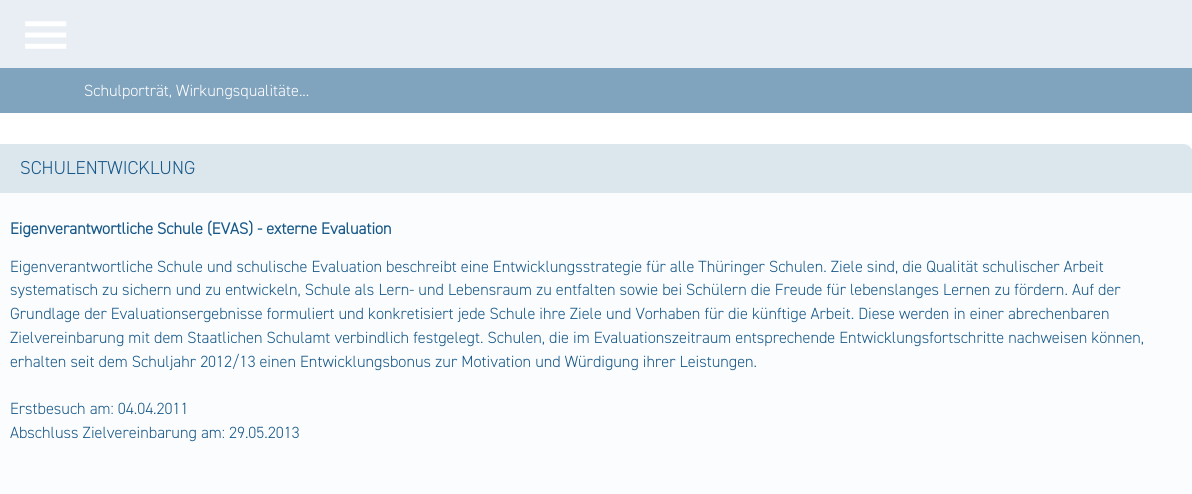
#include <cairo.h>
#include <math.h>
#include <stddef.h>


static void rgb(cairo_t *cr, int r, int g, int b)
{
	cairo_set_source_rgb(cr, r / 255.0, g / 255.0, b / 255.0);
}

static void face(cairo_t *cr, const char *family, double size, int italic, int bold)
{
	cairo_select_font_face(cr, family, italic ? CAIRO_FONT_SLANT_ITALIC : CAIRO_FONT_SLANT_NORMAL,
		bold ? CAIRO_FONT_WEIGHT_BOLD : CAIRO_FONT_WEIGHT_NORMAL);
	cairo_set_font_size(cr, size);
}

static void label(cairo_t *cr, double x, double y, const char *s)
{
	cairo_move_to(cr, x, y);
	cairo_show_text(cr, s);
}

static void rect(cairo_t *cr, double x, double y, double w, double h)
{
	cairo_rectangle(cr, x, y, w, h);
	cairo_fill(cr);
}

static void image(cairo_t *cr, const char *path, double x, double y, double w, double h)
{
	cairo_surface_t *image = cairo_image_surface_create_from_png(path);
	cairo_save(cr);
	cairo_set_source_surface(cr, image, x, y);
	cairo_rectangle(cr, x, y, w, h);
	cairo_fill(cr);
	cairo_restore(cr);
	cairo_surface_destroy(image);
}

static void draw(cairo_t *cr) {
	rgb(cr, 255, 255, 255);
	cairo_paint(cr);
	rgb(cr, 232, 238, 243);
	rect(cr, 0, 0, 1192, 68);
	image(cr, "image0.png", 25, 21, 42, 28);
	rgb(cr, 128, 163, 190);
	rect(cr, 0, 68, 1192, 45);
	face(cr, "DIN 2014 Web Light", 16.25, 0, 0);
	rgb(cr, 255, 255, 255);
	label(cr, 84, 96, "Schulporträt, Wirkungsqualitäte...");
	rgb(cr, 250, 252, 253);
	rect(cr, 0, 144, 1192, 350);
	rgb(cr, 220, 230, 237);
	cairo_new_path(cr);
	cairo_move_to(cr, 0, 144);
	cairo_line_to(cr, 1183, 144);
	cairo_curve_to(cr, 1188.5, 144, 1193, 148.5, 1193, 154);
	cairo_line_to(cr, 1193, 193);
	cairo_line_to(cr, 0, 193);
	cairo_close_path(cr);
	cairo_fill(cr);
	face(cr, "DIN 2014 Web Light", 18.75, 0, 0);
	rgb(cr, 24, 88, 136);
	label(cr, 20, 174, "SCHULENTWICKLUNG");
	face(cr, "DIN 2014 Web", 16.25, 0, 1);
	label(cr, 10, 234, "Eigenverantwortliche Schule (EVAS) - externe Evaluation");
	face(cr, "DIN 2014 Web Light", 16.25, 0, 0);
	label(cr, 10, 272, "Eigenverantwortliche Schule und schulische Evaluation beschreibt eine Entwicklungsstrategie für alle Thüringer Schulen. Ziele sind, die Qualität schulischer Arbeit");
	label(cr, 10, 295, "systematisch zu sichern und zu entwickeln, Schule als Lern- und Lebensraum zu entfalten sowie bei Schülern die Freude für lebenslanges Lernen zu fördern. Auf der");
	label(cr, 10, 319, "Grundlage der Evaluationsergebnisse formuliert und konkretisiert jede Schule ihre Ziele und Vorhaben für die künftige Arbeit. Diese werden in einer abrechenbaren");
	label(cr, 10, 343, "Zielvereinbarung mit dem Staatlichen Schulamt verbindlich festgelegt. Schulen, die im Evaluationszeitraum entsprechende Entwicklungsfortschritte nachweisen können,");
	label(cr, 10, 367, "erhalten seit dem Schuljahr 2012/13 einen Entwicklungsbonus zur Motivation und Würdigung ihrer Leistungen.");
	label(cr, 10, 414, "Erstbesuch am: 04.04.2011");
	label(cr, 10, 438, "Abschluss Zielvereinbarung am: 29.05.2013");
}

int main(void) {
	cairo_surface_t *surface = cairo_image_surface_create(CAIRO_FORMAT_RGB24, 1192, 494);
	cairo_t *cr = cairo_create(surface);
	cairo_font_options_t *options = cairo_font_options_create();
	cairo_font_options_set_hint_metrics(options, CAIRO_HINT_METRICS_OFF);
	cairo_font_options_set_hint_style(options, CAIRO_HINT_STYLE_NONE);
	cairo_set_font_options(cr, options);
	cairo_set_miter_limit(cr, 4);
	draw(cr);
	cairo_surface_write_to_png(surface, "render.png");
	cairo_font_options_destroy(options);
	cairo_destroy(cr);
	cairo_surface_destroy(surface);
	return 0;
}
